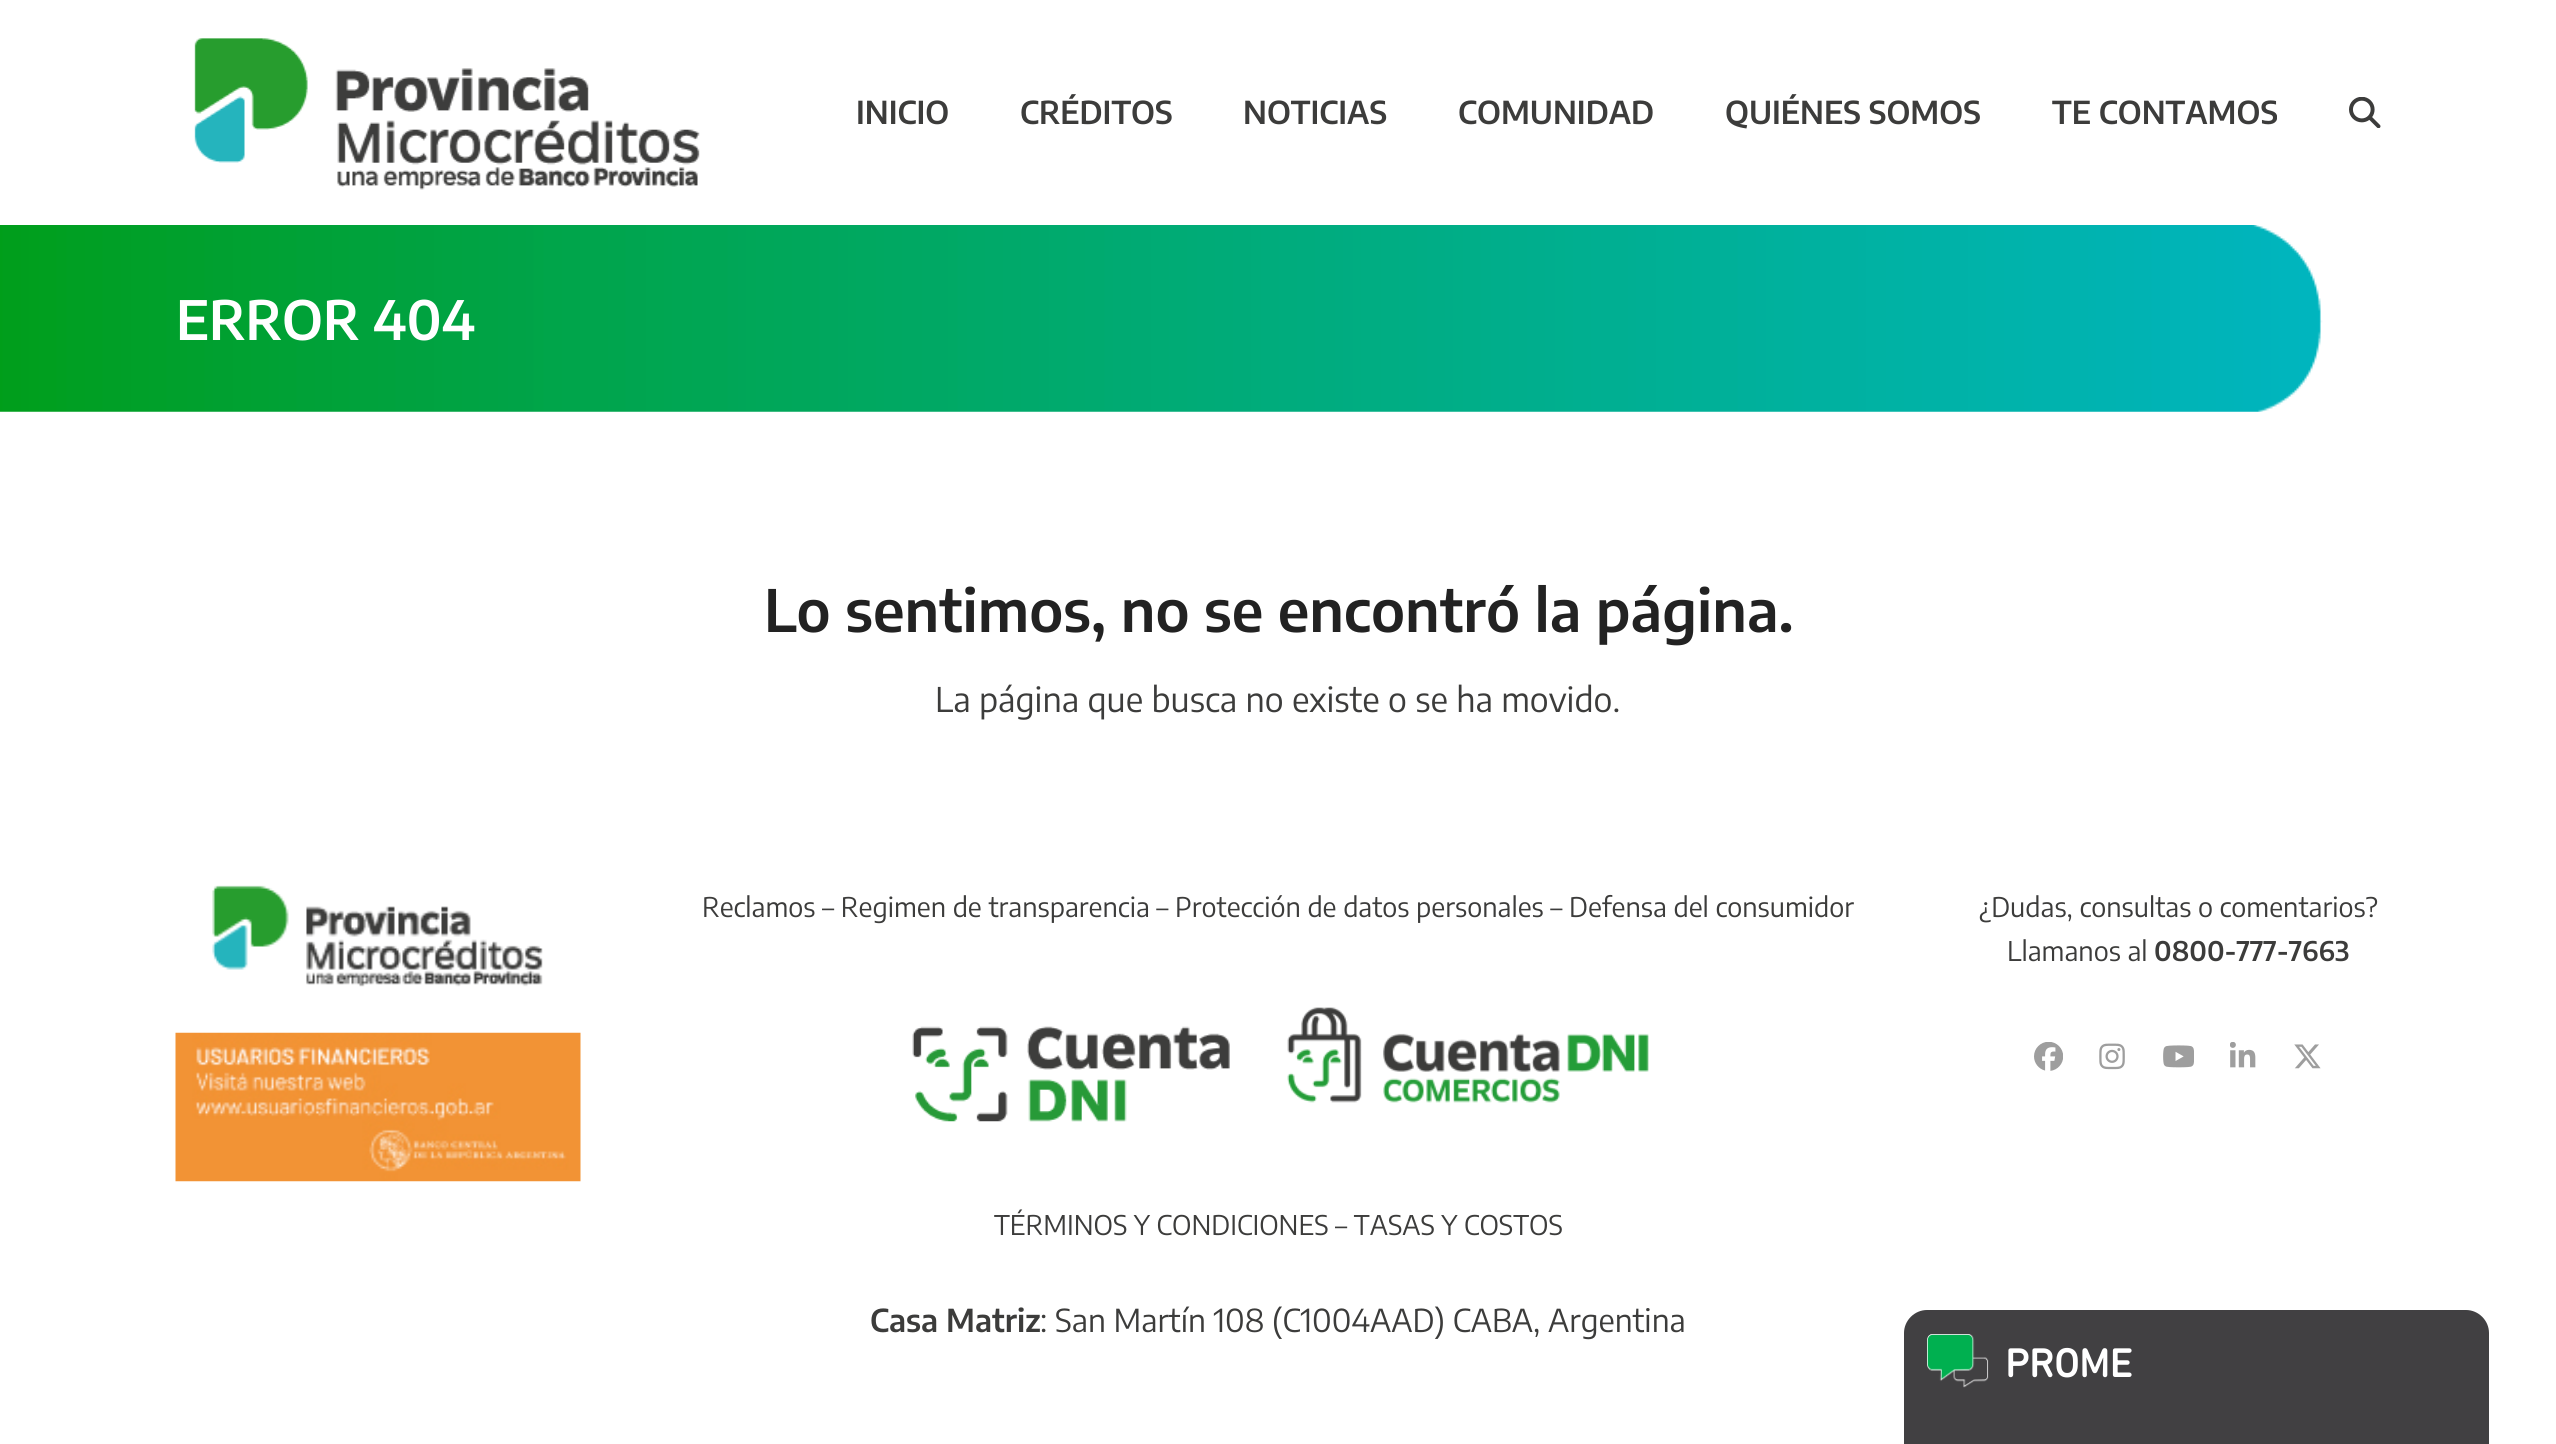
#include <cairo.h>
#include <math.h>
#include <stddef.h>


static void rgb(cairo_t *cr, int r, int g, int b)
{
	cairo_set_source_rgb(cr, r / 255.0, g / 255.0, b / 255.0);
}

static void face(cairo_t *cr, const char *family, double size, int italic, int bold)
{
	cairo_select_font_face(cr, family, italic ? CAIRO_FONT_SLANT_ITALIC : CAIRO_FONT_SLANT_NORMAL,
		bold ? CAIRO_FONT_WEIGHT_BOLD : CAIRO_FONT_WEIGHT_NORMAL);
	cairo_set_font_size(cr, size);
}

static void label(cairo_t *cr, double x, double y, const char *s)
{
	cairo_move_to(cr, x, y);
	cairo_show_text(cr, s);
}

static void image(cairo_t *cr, const char *path, double x, double y, double w, double h)
{
	cairo_surface_t *image = cairo_image_surface_create_from_png(path);
	cairo_save(cr);
	cairo_set_source_surface(cr, image, x, y);
	cairo_rectangle(cr, x, y, w, h);
	cairo_fill(cr);
	cairo_restore(cr);
	cairo_surface_destroy(image);
}

static void draw(cairo_t *cr) {
	rgb(cr, 255, 255, 255);
	cairo_paint(cr);
	image(cr, "image0.png", 194, 38, 506, 152);
	face(cr, "Encode Sans SemiBold", 31.5, 0, 0);
	rgb(cr, 60, 60, 59);
	label(cr, 856, 124, "INICIO");
	label(cr, 1020, 124, "CRÉDITOS");
	label(cr, 1243, 124, "NOTICIAS");
	label(cr, 1458, 124, "COMUNIDAD");
	label(cr, 1725, 124, "QUIÉNES SOMOS");
	label(cr, 2052, 124, "TE CONTAMOS");
	image(cr, "image1.png", 2349, 97, 32, 31);
	image(cr, "image2.png", 0, 225, 2323, 187);
	face(cr, "Encode Sans SemiBold", 54, 0, 0);
	rgb(cr, 255, 255, 255);
	label(cr, 176, 340, "ERROR 404");
	face(cr, "Encode Sans SemiBold", 58.2, 0, 0);
	rgb(cr, 34, 34, 34);
	label(cr, 764, 632, "Lo sentimos, no se encontró la página.");
	face(cr, "Encode Sans", 33.9, 0, 0);
	rgb(cr, 60, 60, 59);
	label(cr, 935, 712, "La página que busca no existe o se ha movido.");
	image(cr, "image3.png", 212, 885, 331, 102);
	image(cr, "image4.png", 175, 1032, 406, 150);
	face(cr, "Encode Sans", 27, 0, 0);
	label(cr, 702, 917, "Reclamos – Regimen de transparencia – Protección de datos personales – Defensa del consumidor");
	image(cr, "image5.png", 912, 1026, 318, 96);
	image(cr, "image6.png", 1287, 1007, 362, 96);
	label(cr, 994, 1235, "TÉRMINOS Y CONDICIONES – TASAS Y COSTOS");
	face(cr, "Encode Sans SemiBold", 31.5, 0, 0);
	label(cr, 870, 1332, "Casa Matriz");
	face(cr, "Encode Sans", 31.5, 0, 0);
	label(cr, 1040, 1332, ": San Martín 108 (C1004AAD) CABA, Argentina");
	face(cr, "Encode Sans", 27, 0, 0);
	label(cr, 1979, 917, "¿Dudas, consultas o comentarios?");
	label(cr, 2007, 961, "Llamanos al");
	face(cr, "Encode Sans SemiBold", 27, 0, 0);
	label(cr, 2154, 961, "0800-777-7663");
	image(cr, "image7.png", 2034, 1042, 29, 29);
	image(cr, "image8.png", 2099, 1043, 26, 27);
	image(cr, "image9.png", 2163, 1045, 31, 23);
	image(cr, "image10.png", 2230, 1042, 26, 26);
	image(cr, "image11.png", 2294, 1044, 27, 25);
	rgb(cr, 65, 64, 66);
	cairo_new_path(cr);
	cairo_move_to(cr, 1927, 1310);
	cairo_line_to(cr, 2466, 1310);
	cairo_curve_to(cr, 2478.5, 1310, 2489, 1320.5, 2489, 1333);
	cairo_line_to(cr, 2489, 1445);
	cairo_line_to(cr, 1904, 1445);
	cairo_line_to(cr, 1904, 1333);
	cairo_curve_to(cr, 1904, 1320.5, 1914.5, 1310, 1927, 1310);
	cairo_close_path(cr);
	cairo_fill(cr);
	image(cr, "image12.png", 1927, 1334, 62, 54);
	face(cr, "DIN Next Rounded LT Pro", 40.5, 0, 1);
	rgb(cr, 255, 255, 255);
	label(cr, 2005, 1377, "PROME");
}

int main(void) {
	cairo_surface_t *surface = cairo_image_surface_create(CAIRO_FORMAT_RGB24, 2556, 1444);
	cairo_t *cr = cairo_create(surface);
	cairo_font_options_t *options = cairo_font_options_create();
	cairo_font_options_set_hint_metrics(options, CAIRO_HINT_METRICS_OFF);
	cairo_font_options_set_hint_style(options, CAIRO_HINT_STYLE_NONE);
	cairo_set_font_options(cr, options);
	cairo_set_miter_limit(cr, 4);
	draw(cr);
	cairo_surface_write_to_png(surface, "render.png");
	cairo_font_options_destroy(options);
	cairo_destroy(cr);
	cairo_surface_destroy(surface);
	return 0;
}
